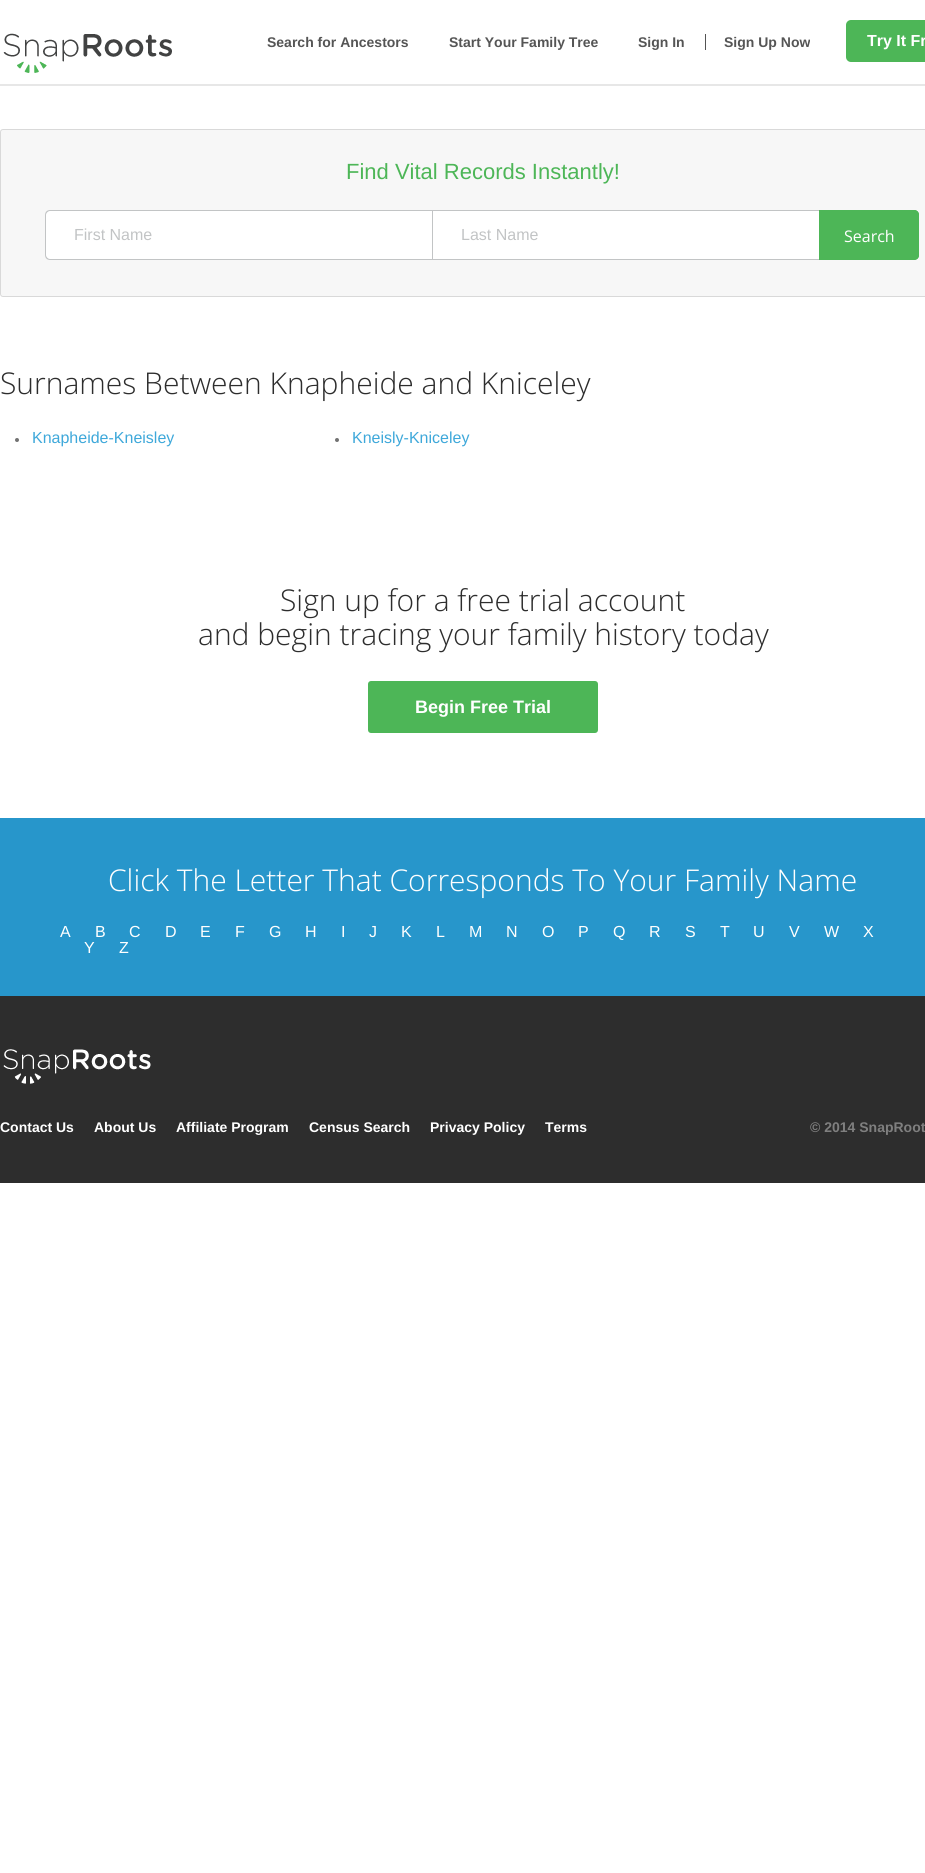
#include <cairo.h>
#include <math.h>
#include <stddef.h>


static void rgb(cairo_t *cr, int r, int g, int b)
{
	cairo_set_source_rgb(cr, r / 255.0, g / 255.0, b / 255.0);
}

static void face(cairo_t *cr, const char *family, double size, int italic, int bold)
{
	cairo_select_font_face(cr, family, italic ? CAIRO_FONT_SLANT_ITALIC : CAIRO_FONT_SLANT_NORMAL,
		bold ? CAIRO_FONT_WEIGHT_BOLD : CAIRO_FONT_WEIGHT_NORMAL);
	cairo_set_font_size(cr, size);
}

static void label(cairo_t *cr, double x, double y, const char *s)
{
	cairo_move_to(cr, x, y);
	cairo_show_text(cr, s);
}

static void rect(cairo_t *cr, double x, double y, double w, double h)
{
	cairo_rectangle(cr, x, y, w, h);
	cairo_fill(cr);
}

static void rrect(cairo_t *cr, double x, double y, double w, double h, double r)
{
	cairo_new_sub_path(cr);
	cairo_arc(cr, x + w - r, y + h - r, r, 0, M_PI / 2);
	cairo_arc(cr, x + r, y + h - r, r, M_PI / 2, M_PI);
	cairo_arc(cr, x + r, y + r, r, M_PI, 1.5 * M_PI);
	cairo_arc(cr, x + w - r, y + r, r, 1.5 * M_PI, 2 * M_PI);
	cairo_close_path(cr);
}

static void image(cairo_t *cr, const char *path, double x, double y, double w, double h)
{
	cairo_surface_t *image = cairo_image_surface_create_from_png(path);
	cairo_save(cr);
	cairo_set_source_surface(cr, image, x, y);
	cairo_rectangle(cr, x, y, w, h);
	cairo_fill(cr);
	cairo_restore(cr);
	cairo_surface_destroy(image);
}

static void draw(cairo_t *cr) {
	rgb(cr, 255, 255, 255);
	cairo_paint(cr);
	rgb(cr, 231, 231, 231);
	rect(cr, 0, 84, 925, 2);
	image(cr, "image0.png", 3, 33, 169, 40);
	face(cr, "Liberation Sans", 14, 0, 1);
	rgb(cr, 85, 85, 85);
	label(cr, 267, 47, "Search for Ancestors");
	label(cr, 449, 47, "Start Your Family Tree");
	label(cr, 638, 47, "Sign In");
	rgb(cr, 84, 84, 84);
	rect(cr, 705, 34, 1, 16);
	rgb(cr, 85, 85, 85);
	label(cr, 724, 47, "Sign Up Now");
	rgb(cr, 77, 182, 87);
	rrect(cr, 846, 20, 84, 42, 5);
	cairo_fill(cr);
	face(cr, "Liberation Sans", 16, 0, 1);
	rgb(cr, 255, 255, 255);
	label(cr, 867, 46, "Try It Fr");
	rgb(cr, 247, 247, 247);
	rrect(cr, 0.5, 129.5, 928, 167, 2.5);
	cairo_fill_preserve(cr);
	rgb(cr, 217, 217, 217);
	cairo_set_line_width(cr, 1);
	cairo_stroke(cr);
	face(cr, "Liberation Sans", 22, 0, 0);
	rgb(cr, 77, 182, 87);
	label(cr, 346, 179, "Find Vital Records Instantly!");
	rgb(cr, 255, 255, 255);
	cairo_new_path(cr);
	cairo_move_to(cr, 50, 210);
	cairo_line_to(cr, 432, 210);
	cairo_line_to(cr, 432, 260);
	cairo_line_to(cr, 50, 260);
	cairo_curve_to(cr, 47, 260, 45, 258, 45, 255);
	cairo_line_to(cr, 45, 215);
	cairo_curve_to(cr, 45, 212, 47, 210, 50, 210);
	cairo_close_path(cr);
	cairo_fill(cr);
	rgb(cr, 194, 196, 197);
	cairo_set_fill_rule(cr, CAIRO_FILL_RULE_EVEN_ODD);
	cairo_new_path(cr);
	cairo_move_to(cr, 50, 210);
	cairo_line_to(cr, 432, 210);
	cairo_line_to(cr, 432, 260);
	cairo_line_to(cr, 50, 260);
	cairo_curve_to(cr, 47, 260, 45, 258, 45, 255);
	cairo_line_to(cr, 45, 215);
	cairo_curve_to(cr, 45, 212, 47, 210, 50, 210);
	cairo_close_path(cr);
	cairo_move_to(cr, 50, 211);
	cairo_line_to(cr, 432, 211);
	cairo_line_to(cr, 432, 259);
	cairo_line_to(cr, 50, 259);
	cairo_curve_to(cr, 48, 259, 46, 257, 46, 255);
	cairo_line_to(cr, 46, 215);
	cairo_curve_to(cr, 46, 213, 48, 211, 50, 211);
	cairo_close_path(cr);
	cairo_fill(cr);
	face(cr, "Liberation Sans", 16, 0, 0);
	label(cr, 74, 240, "First Name");
	rgb(cr, 255, 255, 255);
	rect(cr, 433, 211, 386, 48);
	rgb(cr, 194, 196, 197);
	rect(cr, 432, 210, 387, 1);
	rect(cr, 432, 259, 387, 1);
	rect(cr, 432, 210, 1, 50);
	label(cr, 461, 240, "Last Name");
	rgb(cr, 77, 182, 87);
	cairo_new_path(cr);
	cairo_move_to(cr, 819, 210);
	cairo_line_to(cr, 914, 210);
	cairo_curve_to(cr, 917, 210, 919, 212, 919, 215);
	cairo_line_to(cr, 919, 255);
	cairo_curve_to(cr, 919, 258, 917, 260, 914, 260);
	cairo_line_to(cr, 819, 260);
	cairo_close_path(cr);
	cairo_fill(cr);
	image(cr, "image1.png", 914, 210, 5, 50);
	face(cr, "Open Sans", 16, 0, 0);
	rgb(cr, 255, 255, 255);
	label(cr, 844, 242, "Search");
	face(cr, "Open Sans Light", 30, 0, 0);
	rgb(cr, 45, 45, 45);
	label(cr, 0, 394, "Surnames Between Knapheide and Kniceley");
	rgb(cr, 114, 114, 114);
	cairo_new_path(cr);
	cairo_arc(cr, 17, 440, 2, 0, 2 * M_PI);
	cairo_fill(cr);
	face(cr, "Liberation Sans", 16, 0, 0);
	rgb(cr, 62, 168, 218);
	label(cr, 32, 443, "Knapheide-Kneisley");
	rgb(cr, 114, 114, 114);
	cairo_new_path(cr);
	cairo_arc(cr, 337, 440, 2, 0, 2 * M_PI);
	cairo_fill(cr);
	rgb(cr, 62, 168, 218);
	label(cr, 352, 443, "Kneisly-Kniceley");
	face(cr, "Open Sans Light", 30, 0, 0);
	rgb(cr, 45, 45, 45);
	label(cr, 280, 611, "Sign up for a free trial account");
	label(cr, 198, 645, "and begin tracing your family history today");
	rgb(cr, 77, 182, 87);
	rrect(cr, 368, 681, 230, 52, 3);
	cairo_fill(cr);
	face(cr, "Liberation Sans", 18, 0, 1);
	rgb(cr, 255, 255, 255);
	label(cr, 415, 713, "Begin Free Trial");
	rgb(cr, 39, 150, 203);
	rect(cr, 0, 818, 925, 178);
	face(cr, "Open Sans Light", 30, 0, 0);
	rgb(cr, 255, 255, 255);
	label(cr, 108, 891, "Click The Letter That Corresponds To Your Family Name");
	face(cr, "Liberation Sans", 16, 0, 0);
	label(cr, 60, 937, "A");
	label(cr, 95, 937, "B");
	label(cr, 129, 937, "C");
	label(cr, 165, 937, "D");
	label(cr, 200, 937, "E");
	label(cr, 235, 937, "F");
	label(cr, 269, 937, "G");
	label(cr, 305, 937, "H");
	label(cr, 341, 937, "I");
	label(cr, 369, 937, "J");
	label(cr, 401, 937, "K");
	label(cr, 436, 937, "L");
	label(cr, 469, 937, "M");
	label(cr, 506, 937, "N");
	label(cr, 542, 937, "O");
	label(cr, 578, 937, "P");
	label(cr, 613, 937, "Q");
	label(cr, 649, 937, "R");
	label(cr, 685, 937, "S");
	label(cr, 720, 937, "T");
	label(cr, 753, 937, "U");
	label(cr, 789, 937, "V");
	label(cr, 824, 937, "W");
	label(cr, 863, 937, "X");
	label(cr, 84, 953, "Y");
	label(cr, 119, 953, "Z");
	rgb(cr, 45, 45, 45);
	rect(cr, 0, 996, 925, 187);
	image(cr, "image2.png", 3, 1049, 148, 35);
	face(cr, "Liberation Sans", 14, 0, 1);
	rgb(cr, 255, 255, 255);
	label(cr, 0, 1132, "Contact Us");
	label(cr, 94, 1132, "About Us");
	label(cr, 176, 1132, "Affiliate Program");
	label(cr, 309, 1132, "Census Search");
	label(cr, 430, 1132, "Privacy Policy");
	label(cr, 545, 1132, "Terms");
	rgb(cr, 127, 127, 127);
	label(cr, 810, 1132, "© 2014 SnapRoot");
}

int main(void) {
	cairo_surface_t *surface = cairo_image_surface_create(CAIRO_FORMAT_RGB24, 925, 1873);
	cairo_t *cr = cairo_create(surface);
	cairo_font_options_t *options = cairo_font_options_create();
	cairo_font_options_set_hint_metrics(options, CAIRO_HINT_METRICS_OFF);
	cairo_font_options_set_hint_style(options, CAIRO_HINT_STYLE_NONE);
	cairo_set_font_options(cr, options);
	cairo_set_miter_limit(cr, 4);
	draw(cr);
	cairo_surface_write_to_png(surface, "render.png");
	cairo_font_options_destroy(options);
	cairo_destroy(cr);
	cairo_surface_destroy(surface);
	return 0;
}
